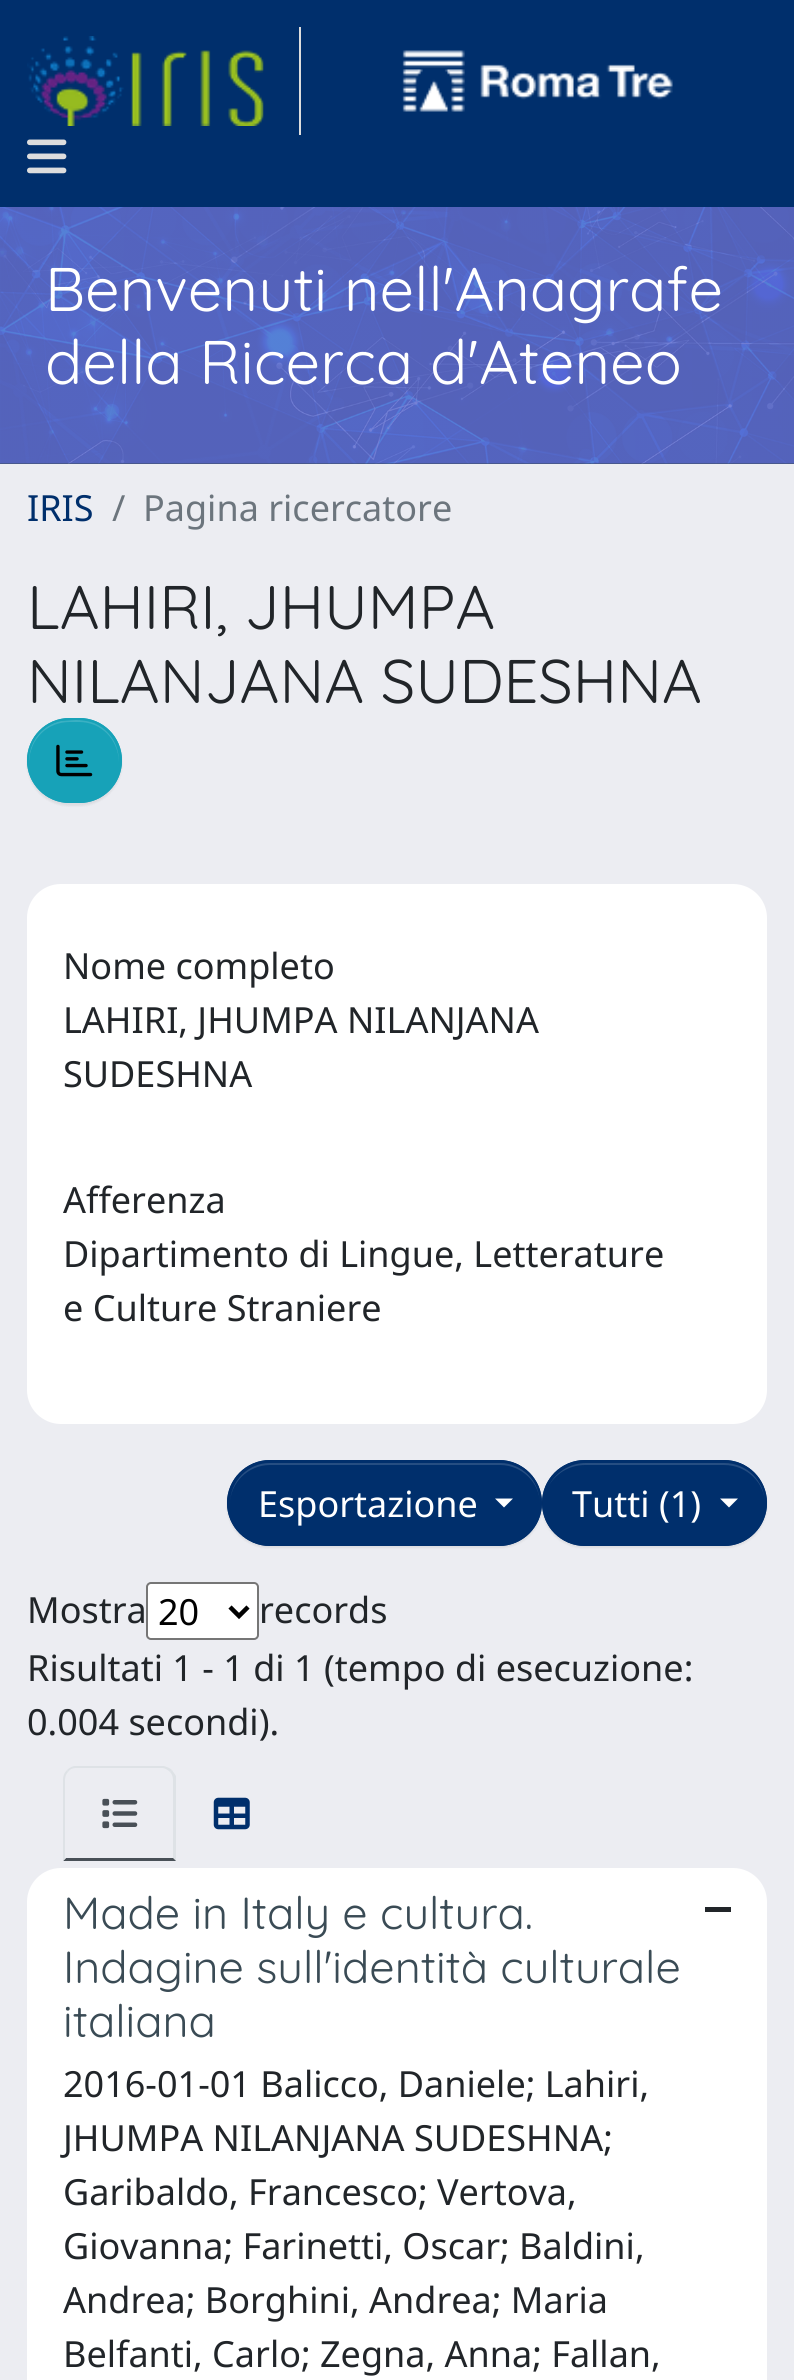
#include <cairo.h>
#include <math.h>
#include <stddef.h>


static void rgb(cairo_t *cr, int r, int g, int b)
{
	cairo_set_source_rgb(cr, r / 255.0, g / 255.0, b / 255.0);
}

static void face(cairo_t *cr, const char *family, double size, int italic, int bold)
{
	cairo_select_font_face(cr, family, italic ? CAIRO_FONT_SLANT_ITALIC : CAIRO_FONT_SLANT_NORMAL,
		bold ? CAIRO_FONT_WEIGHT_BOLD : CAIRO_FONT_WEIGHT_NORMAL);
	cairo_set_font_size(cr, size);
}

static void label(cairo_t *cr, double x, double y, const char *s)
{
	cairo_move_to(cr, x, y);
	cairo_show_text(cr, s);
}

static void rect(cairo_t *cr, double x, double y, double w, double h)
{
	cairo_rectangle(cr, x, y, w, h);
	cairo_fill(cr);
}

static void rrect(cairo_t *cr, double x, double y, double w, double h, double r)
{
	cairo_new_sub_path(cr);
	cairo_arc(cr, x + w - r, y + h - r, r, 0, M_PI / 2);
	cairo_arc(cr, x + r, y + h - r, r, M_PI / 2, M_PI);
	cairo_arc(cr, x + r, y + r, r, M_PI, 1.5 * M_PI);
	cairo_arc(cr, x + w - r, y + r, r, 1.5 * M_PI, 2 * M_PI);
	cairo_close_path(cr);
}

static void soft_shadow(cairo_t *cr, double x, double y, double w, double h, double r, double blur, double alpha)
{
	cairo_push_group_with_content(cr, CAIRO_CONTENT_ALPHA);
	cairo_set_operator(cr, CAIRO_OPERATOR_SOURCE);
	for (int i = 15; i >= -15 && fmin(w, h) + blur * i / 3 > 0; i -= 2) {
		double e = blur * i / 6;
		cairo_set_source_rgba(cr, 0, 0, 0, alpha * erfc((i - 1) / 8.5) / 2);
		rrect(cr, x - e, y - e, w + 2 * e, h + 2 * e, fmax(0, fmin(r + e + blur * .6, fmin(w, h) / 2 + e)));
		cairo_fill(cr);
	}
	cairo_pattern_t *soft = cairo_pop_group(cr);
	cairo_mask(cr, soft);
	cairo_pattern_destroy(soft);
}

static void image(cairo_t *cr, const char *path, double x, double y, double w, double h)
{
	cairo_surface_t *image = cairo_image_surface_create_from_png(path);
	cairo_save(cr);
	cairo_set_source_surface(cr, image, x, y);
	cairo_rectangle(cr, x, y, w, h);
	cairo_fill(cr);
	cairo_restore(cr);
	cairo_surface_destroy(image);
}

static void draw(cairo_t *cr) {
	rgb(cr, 236, 237, 242);
	cairo_paint(cr);
	rgb(cr, 0, 47, 108);
	rect(cr, 0, 0, 794, 207);
	rgb(cr, 221, 221, 221);
	rect(cr, 299, 27, 2, 108);
	image(cr, "image0.png", 27, 36, 237, 90);
	image(cr, "image1.png", 402, 50, 271, 62);
	image(cr, "image2.png", 27, 139, 40, 35);
	rgb(cr, 58, 75, 85);
	rect(cr, 0, 207, 794, 257);
	image(cr, "image3.png", 0, 207, 794, 257);
	face(cr, "Quicksand Light", 61.5, 0, 0);
	rgb(cr, 255, 255, 255);
	label(cr, 45, 311, "Benvenuti nell'Anagrafe");
	label(cr, 45, 384, "della Ricerca d'Ateneo");
	face(cr, "Noto Sans", 36, 0, 0);
	rgb(cr, 0, 47, 108);
	label(cr, 27, 521, "IRIS");
	rgb(cr, 108, 117, 125);
	label(cr, 112, 521, "/");
	label(cr, 143, 521, "Pagina ricercatore");
	face(cr, "Quicksand Light", 61.5, 0, 0);
	rgb(cr, 33, 37, 41);
	label(cr, 27, 629, "LAHIRI, JHUMPA");
	label(cr, 27, 703, "NILANJANA SUDESHNA");
	rgb(cr, 0, 0, 0);
	soft_shadow(cr, 27, 720, 95, 86, 43, 1, 0.07);
	rgb(cr, 23, 162, 184);
	rrect(cr, 27, 718, 95, 85, 42.5);
	cairo_fill(cr);
	rgb(cr, 58, 176, 195);
	cairo_new_path(cr);
	cairo_move_to(cr, 70, 722);
	cairo_line_to(cr, 79, 722);
	cairo_curve_to(cr, 101, 722, 118, 739, 119, 762);
	cairo_curve_to(cr, 119, 745, 110, 730, 94, 723);
	cairo_curve_to(cr, 88, 721, 82, 720, 76, 720);
	cairo_line_to(cr, 61, 721);
	cairo_curve_to(cr, 42, 725, 28, 742, 29, 762);
	cairo_curve_to(cr, 30, 739, 47, 722, 70, 722);
	cairo_close_path(cr);
	cairo_fill(cr);
	rrect(cr, 28, 719, 93, 83, 41.5);
	rgb(cr, 23, 162, 184);
	cairo_stroke(cr);
	image(cr, "image4.png", 56, 744, 37, 33);
	rgb(cr, 255, 255, 255);
	rrect(cr, 27, 884, 740, 540, 34);
	cairo_fill(cr);
	face(cr, "Noto Sans", 36, 0, 0);
	rgb(cr, 33, 37, 41);
	label(cr, 63, 979, "Nome completo");
	label(cr, 63, 1033, "LAHIRI, JHUMPA NILANJANA");
	label(cr, 63, 1087, "SUDESHNA");
	label(cr, 63, 1213, "Afferenza");
	label(cr, 63, 1267, "Dipartimento di Lingue, Letterature");
	label(cr, 63, 1321, "e Culture Straniere");
	rgb(cr, 0, 0, 0);
	soft_shadow(cr, 542, 1463, 225, 85, 42.5, 1, 0.07);
	rgb(cr, 0, 47, 108);
	rrect(cr, 542, 1460, 225, 86, 43);
	cairo_fill(cr);
	rgb(cr, 38, 78, 130);
	cairo_new_path(cr);
	cairo_move_to(cr, 585, 1465);
	cairo_line_to(cr, 724, 1465);
	cairo_curve_to(cr, 747, 1465, 765, 1483, 765, 1504);
	cairo_curve_to(cr, 765, 1481, 747, 1463, 724, 1463);
	cairo_line_to(cr, 586, 1463);
	cairo_curve_to(cr, 569, 1463, 555, 1473, 548, 1487);
	cairo_curve_to(cr, 555, 1474, 569, 1465, 585, 1465);
	cairo_close_path(cr);
	cairo_fill(cr);
	rrect(cr, 543, 1461, 223, 84, 42);
	rgb(cr, 0, 47, 108);
	cairo_stroke(cr);
	rgb(cr, 0, 0, 0);
	soft_shadow(cr, 227, 1463, 315, 85, 42.5, 1, 0.07);
	rgb(cr, 0, 47, 108);
	rrect(cr, 227, 1460, 315, 86, 43);
	cairo_fill(cr);
	rgb(cr, 38, 78, 130);
	cairo_new_path(cr);
	cairo_move_to(cr, 270, 1465);
	cairo_line_to(cr, 500, 1465);
	cairo_curve_to(cr, 522, 1465, 540, 1483, 540, 1504);
	cairo_curve_to(cr, 540, 1481, 522, 1463, 500, 1463);
	cairo_line_to(cr, 270, 1463);
	cairo_curve_to(cr, 248, 1463, 230, 1481, 230, 1504);
	cairo_curve_to(cr, 230, 1483, 248, 1465, 270, 1465);
	cairo_close_path(cr);
	cairo_fill(cr);
	rrect(cr, 228, 1461, 313, 84, 42);
	rgb(cr, 0, 47, 108);
	cairo_stroke(cr);
	rgb(cr, 255, 255, 255);
	label(cr, 258, 1517, "Esportazione");
	cairo_new_path(cr);
	cairo_move_to(cr, 495, 1498.5);
	cairo_line_to(cr, 513, 1498.5);
	cairo_line_to(cr, 504, 1507.5);
	cairo_close_path(cr);
	cairo_fill(cr);
	label(cr, 572, 1517, "Tutti (1)");
	cairo_new_path(cr);
	cairo_move_to(cr, 720, 1498.5);
	cairo_line_to(cr, 738, 1498.5);
	cairo_line_to(cr, 729, 1507.5);
	cairo_close_path(cr);
	cairo_fill(cr);
	rgb(cr, 33, 37, 41);
	label(cr, 27, 1623, "Mostra");
	rgb(cr, 255, 255, 255);
	rrect(cr, 147, 1583, 111, 56, 4);
	cairo_fill_preserve(cr);
	rgb(cr, 118, 118, 118);
	cairo_stroke(cr);
	cairo_new_path(cr);
	cairo_move_to(cr, 230, 1607);
	cairo_line_to(cr, 239, 1616);
	cairo_line_to(cr, 248, 1607);
	rgb(cr, 0, 0, 0);
	cairo_set_line_width(cr, 4.5);
	cairo_stroke(cr);
	label(cr, 158, 1625, "20");
	rgb(cr, 33, 37, 41);
	label(cr, 259, 1623, "records");
	label(cr, 27, 1681, "Risultati 1 - 1 di 1 (tempo di esecuzione:");
	label(cr, 27, 1735, "0.004 secondi).");
	rgb(cr, 222, 226, 230);
	cairo_new_path(cr);
	cairo_move_to(cr, 76, 1768);
	cairo_curve_to(cr, 73, 1768, 70, 1769, 68, 1772);
	cairo_line_to(cr, 67, 1770);
	cairo_curve_to(cr, 69, 1768, 71, 1767, 74, 1766);
	cairo_line_to(cr, 164, 1766);
	cairo_curve_to(cr, 167, 1767, 170, 1768, 172, 1770);
	cairo_line_to(cr, 170, 1772);
	cairo_curve_to(cr, 168, 1770, 165, 1768, 162, 1768);
	cairo_close_path(cr);
	cairo_fill(cr);
	cairo_new_path(cr);
	cairo_move_to(cr, 172, 1770);
	cairo_curve_to(cr, 173, 1772, 175, 1774, 176, 1776);
	cairo_line_to(cr, 176, 1861);
	cairo_line_to(cr, 173, 1858);
	cairo_line_to(cr, 173, 1780);
	cairo_curve_to(cr, 173, 1777, 172, 1774, 170, 1772);
	cairo_close_path(cr);
	cairo_fill(cr);
	rgb(cr, 73, 80, 87);
	cairo_new_path(cr);
	cairo_move_to(cr, 176, 1861);
	cairo_line_to(cr, 173, 1858);
	cairo_line_to(cr, 66, 1858);
	cairo_line_to(cr, 63, 1861);
	cairo_close_path(cr);
	cairo_fill(cr);
	rgb(cr, 222, 226, 230);
	cairo_new_path(cr);
	cairo_move_to(cr, 63, 1861);
	cairo_line_to(cr, 66, 1858);
	cairo_line_to(cr, 65, 1858);
	cairo_line_to(cr, 65, 1780);
	cairo_curve_to(cr, 65, 1777, 66, 1774, 68, 1772);
	cairo_line_to(cr, 67, 1770);
	cairo_curve_to(cr, 64, 1773, 63, 1776, 63, 1780);
	cairo_close_path(cr);
	cairo_fill(cr);
	image(cr, "image5.png", 102, 1798, 36, 31);
	image(cr, "image6.png", 213, 1797, 37, 33);
	rgb(cr, 255, 255, 255);
	rrect(cr, 27, 1868, 740, 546, 34);
	cairo_fill(cr);
	face(cr, "Quicksand Light", 45, 0, 0);
	rgb(cr, 58, 75, 85);
	label(cr, 63, 1929, "Made in Italy e cultura.");
	label(cr, 63, 1983, "Indagine sull'identità culturale");
	label(cr, 63, 2037, "italiana");
	rgb(cr, 33, 37, 41);
	rect(cr, 705, 1907, 26, 5);
	face(cr, "Noto Sans", 36, 0, 0);
	label(cr, 63, 2097, "2016-01-01 Balicco, Daniele; Lahiri,");
	label(cr, 63, 2151, "JHUMPA NILANJANA SUDESHNA;");
	label(cr, 63, 2205, "Garibaldo, Francesco; Vertova,");
	label(cr, 63, 2259, "Giovanna; Farinetti, Oscar; Baldini,");
	label(cr, 63, 2313, "Andrea; Borghini, Andrea; Maria");
	label(cr, 63, 2367, "Belfanti, Carlo; Zegna, Anna; Fallan,");
}

int main(void) {
	cairo_surface_t *surface = cairo_image_surface_create(CAIRO_FORMAT_RGB24, 794, 2380);
	cairo_t *cr = cairo_create(surface);
	cairo_font_options_t *options = cairo_font_options_create();
	cairo_font_options_set_hint_metrics(options, CAIRO_HINT_METRICS_OFF);
	cairo_font_options_set_hint_style(options, CAIRO_HINT_STYLE_NONE);
	cairo_set_font_options(cr, options);
	cairo_set_miter_limit(cr, 4);
	draw(cr);
	cairo_surface_write_to_png(surface, "render.png");
	cairo_font_options_destroy(options);
	cairo_destroy(cr);
	cairo_surface_destroy(surface);
	return 0;
}
